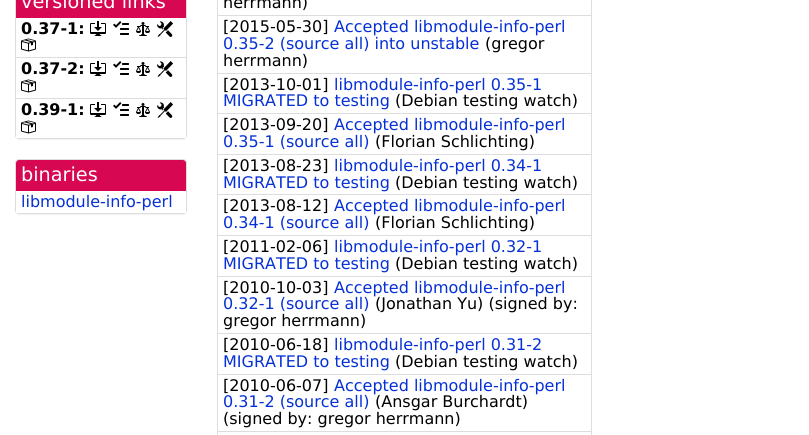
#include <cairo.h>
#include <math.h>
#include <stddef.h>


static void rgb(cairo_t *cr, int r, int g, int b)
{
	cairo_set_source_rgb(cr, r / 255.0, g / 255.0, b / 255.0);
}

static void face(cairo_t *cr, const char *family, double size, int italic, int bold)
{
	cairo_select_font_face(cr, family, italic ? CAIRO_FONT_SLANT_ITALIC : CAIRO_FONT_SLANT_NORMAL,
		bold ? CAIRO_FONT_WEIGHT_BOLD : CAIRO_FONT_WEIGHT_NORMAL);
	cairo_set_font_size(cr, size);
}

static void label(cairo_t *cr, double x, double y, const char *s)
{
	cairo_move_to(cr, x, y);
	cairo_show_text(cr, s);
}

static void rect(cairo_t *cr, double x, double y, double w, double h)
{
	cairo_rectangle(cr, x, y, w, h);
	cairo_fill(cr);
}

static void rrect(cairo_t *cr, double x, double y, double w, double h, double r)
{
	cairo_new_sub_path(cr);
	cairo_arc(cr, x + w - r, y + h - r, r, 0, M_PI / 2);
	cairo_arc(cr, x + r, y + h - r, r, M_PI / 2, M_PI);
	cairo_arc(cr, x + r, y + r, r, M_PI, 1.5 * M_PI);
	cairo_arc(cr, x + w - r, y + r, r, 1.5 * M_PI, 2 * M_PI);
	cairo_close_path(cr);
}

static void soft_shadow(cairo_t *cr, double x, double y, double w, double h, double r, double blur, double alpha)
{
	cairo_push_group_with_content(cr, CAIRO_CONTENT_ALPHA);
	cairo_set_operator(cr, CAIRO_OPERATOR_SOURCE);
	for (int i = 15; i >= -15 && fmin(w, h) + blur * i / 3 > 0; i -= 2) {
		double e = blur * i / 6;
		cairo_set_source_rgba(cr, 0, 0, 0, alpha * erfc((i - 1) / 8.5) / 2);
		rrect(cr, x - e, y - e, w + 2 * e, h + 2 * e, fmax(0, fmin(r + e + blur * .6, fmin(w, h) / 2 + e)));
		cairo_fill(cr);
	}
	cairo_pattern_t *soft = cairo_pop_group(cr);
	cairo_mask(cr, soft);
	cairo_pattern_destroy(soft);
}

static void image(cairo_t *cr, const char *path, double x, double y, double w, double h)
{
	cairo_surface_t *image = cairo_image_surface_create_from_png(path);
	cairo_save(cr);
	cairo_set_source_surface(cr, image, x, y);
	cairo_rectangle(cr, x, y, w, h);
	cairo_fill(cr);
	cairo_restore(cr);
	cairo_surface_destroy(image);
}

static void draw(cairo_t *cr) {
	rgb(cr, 255, 255, 255);
	cairo_paint(cr);
	rgb(cr, 0, 0, 0);
	soft_shadow(cr, 15, -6, 172, 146, 4, 0.5, 0.05);
	rrect(cr, 15.5, -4.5, 171, 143, 3.5);
	rgb(cr, 221, 221, 221);
	cairo_set_line_width(cr, 1);
	cairo_stroke(cr);
	rgb(cr, 215, 7, 81);
	rect(cr, 16, 0, 170, 18);
	face(cr, "DejaVu Sans", 19.25, 0, 0);
	rgb(cr, 255, 255, 255);
	label(cr, 21, 8, "versioned links");
	rect(cr, 16, 18, 170, 120);
	rgb(cr, 221, 221, 221);
	rect(cr, 16, 57, 170, 1);
	face(cr, "DejaVu Sans", 16, 0, 1);
	rgb(cr, 0, 0, 0);
	label(cr, 21, 34, "0.37-1:");
	image(cr, "image0.png", 90, 21, 16, 15);
	image(cr, "image1.png", 113, 21, 16, 14);
	image(cr, "image2.png", 136, 22, 14, 14);
	image(cr, "image3.png", 157, 21, 16, 16);
	image(cr, "image4.png", 21, 38, 15, 14);
	label(cr, 21, 74, "0.37-2:");
	image(cr, "image0.png", 90, 61, 16, 15);
	image(cr, "image1.png", 113, 61, 16, 14);
	image(cr, "image2.png", 136, 62, 14, 14);
	image(cr, "image3.png", 157, 61, 16, 16);
	image(cr, "image4.png", 21, 79, 15, 14);
	rgb(cr, 221, 221, 221);
	rect(cr, 16, 98, 170, 1);
	rgb(cr, 0, 0, 0);
	label(cr, 21, 115, "0.39-1:");
	image(cr, "image0.png", 90, 102, 16, 15);
	image(cr, "image1.png", 113, 102, 16, 14);
	image(cr, "image2.png", 136, 103, 14, 14);
	image(cr, "image3.png", 157, 102, 16, 16);
	image(cr, "image4.png", 21, 120, 15, 14);
	rgb(cr, 0, 0, 0);
	soft_shadow(cr, 15, 160, 172, 55, 4, 0.5, 0.05);
	rrect(cr, 15.5, 159.5, 171, 54, 3.5);
	rgb(cr, 221, 221, 221);
	cairo_stroke(cr);
	rgb(cr, 215, 7, 81);
	cairo_new_path(cr);
	cairo_move_to(cr, 19, 160);
	cairo_line_to(cr, 183, 160);
	cairo_curve_to(cr, 184.5, 160, 186, 161.5, 186, 163);
	cairo_line_to(cr, 186, 192);
	cairo_line_to(cr, 16, 192);
	cairo_line_to(cr, 16, 163);
	cairo_curve_to(cr, 16, 161.5, 17.5, 160, 19, 160);
	cairo_close_path(cr);
	cairo_fill(cr);
	face(cr, "DejaVu Sans", 19.25, 0, 0);
	rgb(cr, 255, 255, 255);
	label(cr, 21, 181, "binaries");
	rect(cr, 16, 191, 170, 22);
	face(cr, "DejaVu Sans", 16, 0, 0);
	rgb(cr, 5, 48, 215);
	label(cr, 21, 207, "libmodule-info-perl");
	cairo_rectangle(cr, 217.5, -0.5, 374, 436);
	rgb(cr, 221, 221, 221);
	cairo_stroke(cr);
	rect(cr, 218, 15, 373, 1);
	rgb(cr, 0, 0, 0);
	label(cr, 223, 8, "herrmann)");
	rgb(cr, 221, 221, 221);
	rect(cr, 218, 73, 373, 1);
	rgb(cr, 0, 0, 0);
	label(cr, 223, 32, "[2015-05-30]");
	rgb(cr, 5, 48, 215);
	label(cr, 334, 32, "Accepted libmodule-info-perl");
	label(cr, 223, 49, "0.35-2 (source all) into unstable");
	rgb(cr, 0, 0, 0);
	label(cr, 485, 49, "(gregor");
	label(cr, 223, 66, "herrmann)");
	rgb(cr, 221, 221, 221);
	rect(cr, 218, 113, 373, 1);
	rgb(cr, 0, 0, 0);
	label(cr, 223, 90, "[2013-10-01]");
	rgb(cr, 5, 48, 215);
	label(cr, 334, 90, "libmodule-info-perl 0.35-1");
	label(cr, 223, 106, "MIGRATED to testing");
	rgb(cr, 0, 0, 0);
	label(cr, 395, 106, "(Debian testing watch)");
	rgb(cr, 221, 221, 221);
	rect(cr, 218, 154, 373, 1);
	rgb(cr, 0, 0, 0);
	label(cr, 223, 130, "[2013-09-20]");
	rgb(cr, 5, 48, 215);
	label(cr, 334, 130, "Accepted libmodule-info-perl");
	label(cr, 223, 147, "0.35-1 (source all)");
	rgb(cr, 0, 0, 0);
	label(cr, 375, 147, "(Florian Schlichting)");
	rgb(cr, 221, 221, 221);
	rect(cr, 218, 194, 373, 1);
	rgb(cr, 0, 0, 0);
	label(cr, 223, 171, "[2013-08-23]");
	rgb(cr, 5, 48, 215);
	label(cr, 334, 171, "libmodule-info-perl 0.34-1");
	label(cr, 223, 188, "MIGRATED to testing");
	rgb(cr, 0, 0, 0);
	label(cr, 395, 188, "(Debian testing watch)");
	rgb(cr, 221, 221, 221);
	rect(cr, 218, 235, 373, 1);
	rgb(cr, 0, 0, 0);
	label(cr, 223, 211, "[2013-08-12]");
	rgb(cr, 5, 48, 215);
	label(cr, 334, 211, "Accepted libmodule-info-perl");
	label(cr, 223, 228, "0.34-1 (source all)");
	rgb(cr, 0, 0, 0);
	label(cr, 375, 228, "(Florian Schlichting)");
	rgb(cr, 221, 221, 221);
	rect(cr, 218, 276, 373, 1);
	rgb(cr, 0, 0, 0);
	label(cr, 223, 252, "[2011-02-06]");
	rgb(cr, 5, 48, 215);
	label(cr, 334, 252, "libmodule-info-perl 0.32-1");
	label(cr, 223, 269, "MIGRATED to testing");
	rgb(cr, 0, 0, 0);
	label(cr, 395, 269, "(Debian testing watch)");
	rgb(cr, 221, 221, 221);
	rect(cr, 218, 333, 373, 1);
	rgb(cr, 0, 0, 0);
	label(cr, 223, 293, "[2010-10-03]");
	rgb(cr, 5, 48, 215);
	label(cr, 334, 293, "Accepted libmodule-info-perl");
	label(cr, 223, 309, "0.32-1 (source all)");
	rgb(cr, 0, 0, 0);
	label(cr, 375, 309, "(Jonathan Yu) (signed by:");
	label(cr, 223, 326, "gregor herrmann)");
	rgb(cr, 221, 221, 221);
	rect(cr, 218, 374, 373, 1);
	rgb(cr, 0, 0, 0);
	label(cr, 223, 350, "[2010-06-18]");
	rgb(cr, 5, 48, 215);
	label(cr, 334, 350, "libmodule-info-perl 0.31-2");
	label(cr, 223, 367, "MIGRATED to testing");
	rgb(cr, 0, 0, 0);
	label(cr, 395, 367, "(Debian testing watch)");
	rgb(cr, 221, 221, 221);
	rect(cr, 218, 431, 373, 1);
	rgb(cr, 0, 0, 0);
	label(cr, 223, 391, "[2010-06-07]");
	rgb(cr, 5, 48, 215);
	label(cr, 334, 391, "Accepted libmodule-info-perl");
	label(cr, 223, 407, "0.31-2 (source all)");
	rgb(cr, 0, 0, 0);
	label(cr, 375, 407, "(Ansgar Burchardt)");
	label(cr, 223, 424, "(signed by: gregor herrmann)");
}

int main(void) {
	cairo_surface_t *surface = cairo_image_surface_create(CAIRO_FORMAT_RGB24, 809, 435);
	cairo_t *cr = cairo_create(surface);
	cairo_font_options_t *options = cairo_font_options_create();
	cairo_font_options_set_hint_metrics(options, CAIRO_HINT_METRICS_OFF);
	cairo_font_options_set_hint_style(options, CAIRO_HINT_STYLE_NONE);
	cairo_set_font_options(cr, options);
	cairo_set_miter_limit(cr, 4);
	draw(cr);
	cairo_surface_write_to_png(surface, "render.png");
	cairo_font_options_destroy(options);
	cairo_destroy(cr);
	cairo_surface_destroy(surface);
	return 0;
}
